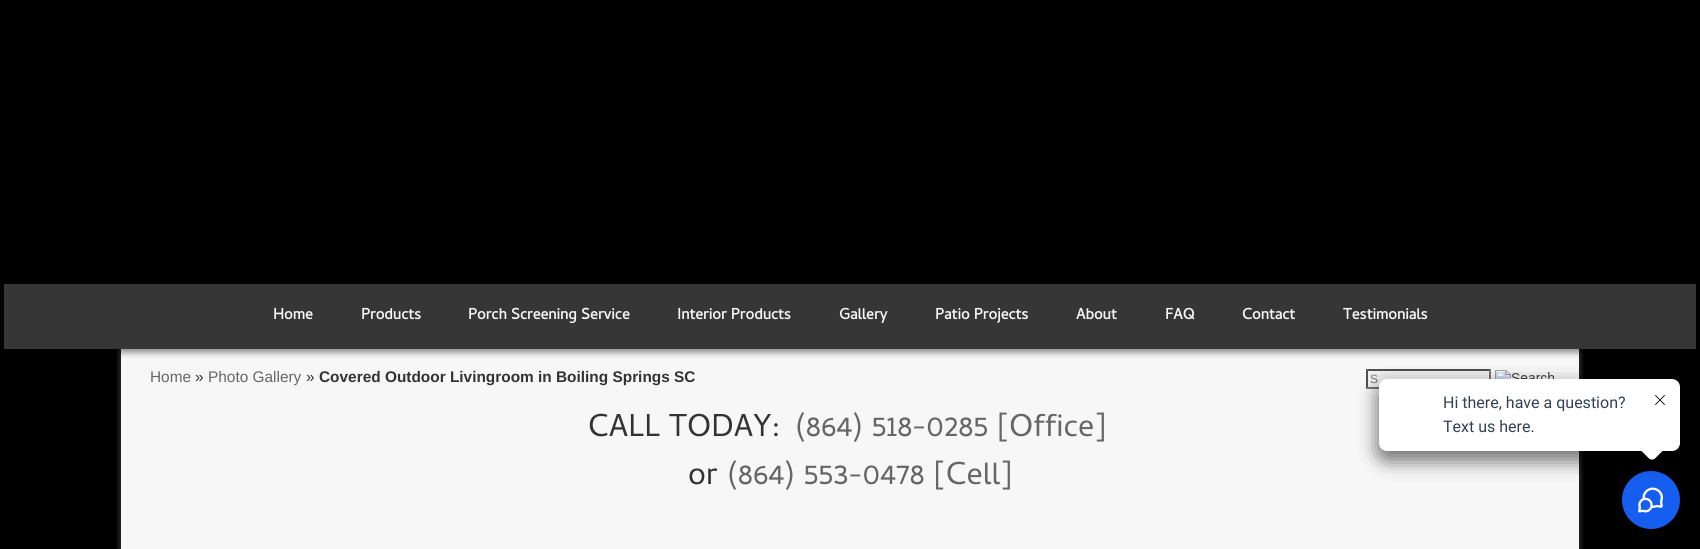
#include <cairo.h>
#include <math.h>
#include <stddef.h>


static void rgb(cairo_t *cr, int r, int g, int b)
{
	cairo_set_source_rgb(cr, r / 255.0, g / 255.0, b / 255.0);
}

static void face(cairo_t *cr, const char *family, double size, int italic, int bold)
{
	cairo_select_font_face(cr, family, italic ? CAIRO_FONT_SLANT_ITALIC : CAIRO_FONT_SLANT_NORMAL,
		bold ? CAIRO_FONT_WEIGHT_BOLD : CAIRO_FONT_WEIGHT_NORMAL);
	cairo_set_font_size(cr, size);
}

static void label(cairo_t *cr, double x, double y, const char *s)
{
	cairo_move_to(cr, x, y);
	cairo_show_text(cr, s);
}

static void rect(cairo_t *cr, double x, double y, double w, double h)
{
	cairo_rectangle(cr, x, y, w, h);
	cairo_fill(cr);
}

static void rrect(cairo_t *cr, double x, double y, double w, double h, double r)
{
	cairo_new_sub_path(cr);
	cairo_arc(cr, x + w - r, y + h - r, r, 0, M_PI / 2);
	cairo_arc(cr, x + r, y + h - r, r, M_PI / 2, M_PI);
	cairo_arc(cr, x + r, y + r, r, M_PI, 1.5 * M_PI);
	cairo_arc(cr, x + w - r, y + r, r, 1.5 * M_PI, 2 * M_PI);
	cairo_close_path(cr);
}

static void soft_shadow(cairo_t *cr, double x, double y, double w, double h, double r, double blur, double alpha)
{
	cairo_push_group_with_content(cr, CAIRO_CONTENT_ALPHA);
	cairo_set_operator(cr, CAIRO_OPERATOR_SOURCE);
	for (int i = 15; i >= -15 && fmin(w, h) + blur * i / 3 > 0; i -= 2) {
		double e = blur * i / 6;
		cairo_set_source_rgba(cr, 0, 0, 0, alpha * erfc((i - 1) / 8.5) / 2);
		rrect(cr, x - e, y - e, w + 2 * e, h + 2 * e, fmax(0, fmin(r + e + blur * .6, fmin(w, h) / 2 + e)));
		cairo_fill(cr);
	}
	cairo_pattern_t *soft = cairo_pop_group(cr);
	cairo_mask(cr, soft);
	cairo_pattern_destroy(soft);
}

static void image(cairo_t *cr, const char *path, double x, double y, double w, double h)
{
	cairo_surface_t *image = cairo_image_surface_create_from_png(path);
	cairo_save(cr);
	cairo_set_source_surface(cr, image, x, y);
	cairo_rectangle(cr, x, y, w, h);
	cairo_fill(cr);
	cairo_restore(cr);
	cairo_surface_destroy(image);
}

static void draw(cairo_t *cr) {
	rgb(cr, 0, 0, 0);
	cairo_paint(cr);
	rgb(cr, 127, 127, 127);
	soft_shadow(cr, 118, 346, 1464, 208, 0, 1.5, 0.25);
	rgb(cr, 247, 247, 247);
	rect(cr, 121, 349, 1458, 200);
	rgb(cr, 0, 0, 0);
	soft_shadow(cr, 6, 288, 1692, 65, 0, 3, 0.4);
	rgb(cr, 54, 54, 54);
	rect(cr, 4, 284, 1692, 65);
	face(cr, "Cambay", 15.5, 0, 1);
	rgb(cr, 245, 245, 245);
	label(cr, 273, 319, "Home");
	label(cr, 361, 319, "Products");
	label(cr, 468, 319, "Porch Screening Service");
	label(cr, 677, 319, "Interior Products");
	label(cr, 839, 319, "Gallery");
	label(cr, 935, 319, "Patio Projects");
	label(cr, 1076, 319, "About");
	label(cr, 1165, 319, "FAQ");
	label(cr, 1242, 319, "Contact");
	label(cr, 1343, 319, "Testimonials");
	face(cr, "Liberation Sans", 15.4, 0, 0);
	rgb(cr, 102, 102, 102);
	label(cr, 150, 382, "Home");
	rgb(cr, 51, 51, 51);
	label(cr, 195, 382, "»");
	rgb(cr, 102, 102, 102);
	label(cr, 208, 382, "Photo Gallery");
	rgb(cr, 51, 51, 51);
	label(cr, 306, 382, "»");
	face(cr, "Liberation Sans", 15.4, 0, 1);
	label(cr, 319, 382, "Covered Outdoor Livingroom in Boiling Springs SC");
	rgb(cr, 240, 240, 240);
	rect(cr, 1366, 369, 125, 20);
	rgb(cr, 79, 79, 79);
	cairo_new_path(cr);
	cairo_move_to(cr, 1366, 369);
	cairo_line_to(cr, 1491, 369);
	cairo_line_to(cr, 1489, 371);
	cairo_line_to(cr, 1368, 371);
	cairo_close_path(cr);
	cairo_fill(cr);
	rgb(cr, 118, 118, 118);
	cairo_new_path(cr);
	cairo_move_to(cr, 1491, 369);
	cairo_line_to(cr, 1491, 389);
	cairo_line_to(cr, 1489, 387);
	cairo_line_to(cr, 1489, 371);
	cairo_close_path(cr);
	cairo_fill(cr);
	cairo_new_path(cr);
	cairo_move_to(cr, 1491, 389);
	cairo_line_to(cr, 1366, 389);
	cairo_line_to(cr, 1368, 387);
	cairo_line_to(cr, 1489, 387);
	cairo_close_path(cr);
	cairo_fill(cr);
	rgb(cr, 79, 79, 79);
	cairo_new_path(cr);
	cairo_move_to(cr, 1366, 389);
	cairo_line_to(cr, 1366, 369);
	cairo_line_to(cr, 1368, 371);
	cairo_line_to(cr, 1368, 387);
	cairo_close_path(cr);
	cairo_fill(cr);
	face(cr, "Liberation Sans", 12, 0, 0);
	rgb(cr, 117, 117, 117);
	label(cr, 1370, 383, "S");
	image(cr, "image0.png", 1495, 370, 60, 9);
	face(cr, "Cambay", 32, 0, 0);
	rgb(cr, 51, 51, 51);
	label(cr, 588, 436, "CALL TODAY:");
	rgb(cr, 102, 102, 102);
	label(cr, 795, 436, "(864) 518-0285 [Office]");
	rgb(cr, 51, 51, 51);
	label(cr, 688, 484, "or");
	rgb(cr, 102, 102, 102);
	label(cr, 727, 484, "(864) 553-0478 [Cell]");
	rgb(cr, 0, 0, 0);
	soft_shadow(cr, 1379, 387, 301, 72, 8, 10, 0.24);
	soft_shadow(cr, 1379, 387, 301, 72, 8, 10, 0.24);
	rgb(cr, 21, 94, 239);
	cairo_arc(cr, 1651, 500, 29, 0, 2 * M_PI);
	cairo_fill(cr);
	image(cr, "image2.png", 1638, 487, 25, 26);
	rgb(cr, 0, 0, 0);
	soft_shadow(cr, 1379, 387, 301, 72, 8, 10, 0.24);
	rgb(cr, 255, 255, 255);
	rrect(cr, 1379, 379, 301, 72, 8);
	cairo_fill(cr);
	face(cr, "Roboto", 16, 0, 0);
	rgb(cr, 52, 64, 84);
	label(cr, 1443, 408, "Hi there, have a question?");
	label(cr, 1443, 432, "Text us here.");
	rgb(cr, 255, 255, 255);
	cairo_new_path(cr);
	cairo_move_to(cr, 1655, 435.5);
	cairo_line_to(cr, 1663.5, 444);
	cairo_curve_to(cr, 1665, 445.5, 1665, 448.5, 1663.5, 450);
	cairo_line_to(cr, 1655, 458.5);
	cairo_curve_to(cr, 1653.5, 460, 1650.5, 460, 1649, 458.5);
	cairo_line_to(cr, 1640.5, 450);
	cairo_curve_to(cr, 1639, 448.5, 1639, 445.5, 1640.5, 444);
	cairo_line_to(cr, 1649, 435.5);
	cairo_curve_to(cr, 1650.5, 434, 1653.5, 434, 1655, 435.5);
	cairo_close_path(cr);
	cairo_fill(cr);
	image(cr, "image1.png", 1655, 395, 10, 10);
}

int main(void) {
	cairo_surface_t *surface = cairo_image_surface_create(CAIRO_FORMAT_RGB24, 1700, 549);
	cairo_t *cr = cairo_create(surface);
	cairo_font_options_t *options = cairo_font_options_create();
	cairo_font_options_set_hint_metrics(options, CAIRO_HINT_METRICS_OFF);
	cairo_font_options_set_hint_style(options, CAIRO_HINT_STYLE_NONE);
	cairo_set_font_options(cr, options);
	cairo_set_miter_limit(cr, 4);
	draw(cr);
	cairo_surface_write_to_png(surface, "render.png");
	cairo_font_options_destroy(options);
	cairo_destroy(cr);
	cairo_surface_destroy(surface);
	return 0;
}
